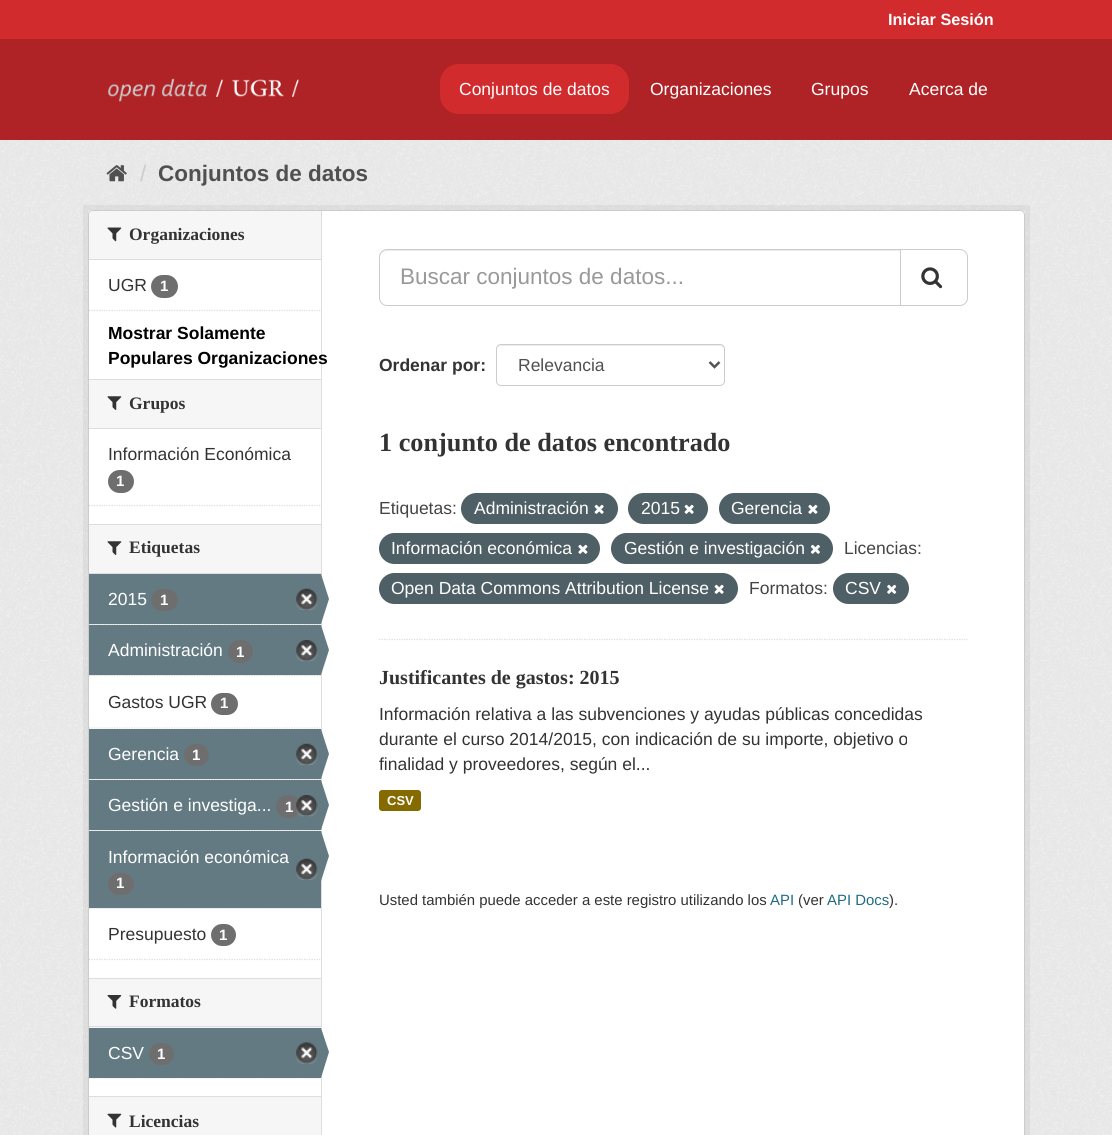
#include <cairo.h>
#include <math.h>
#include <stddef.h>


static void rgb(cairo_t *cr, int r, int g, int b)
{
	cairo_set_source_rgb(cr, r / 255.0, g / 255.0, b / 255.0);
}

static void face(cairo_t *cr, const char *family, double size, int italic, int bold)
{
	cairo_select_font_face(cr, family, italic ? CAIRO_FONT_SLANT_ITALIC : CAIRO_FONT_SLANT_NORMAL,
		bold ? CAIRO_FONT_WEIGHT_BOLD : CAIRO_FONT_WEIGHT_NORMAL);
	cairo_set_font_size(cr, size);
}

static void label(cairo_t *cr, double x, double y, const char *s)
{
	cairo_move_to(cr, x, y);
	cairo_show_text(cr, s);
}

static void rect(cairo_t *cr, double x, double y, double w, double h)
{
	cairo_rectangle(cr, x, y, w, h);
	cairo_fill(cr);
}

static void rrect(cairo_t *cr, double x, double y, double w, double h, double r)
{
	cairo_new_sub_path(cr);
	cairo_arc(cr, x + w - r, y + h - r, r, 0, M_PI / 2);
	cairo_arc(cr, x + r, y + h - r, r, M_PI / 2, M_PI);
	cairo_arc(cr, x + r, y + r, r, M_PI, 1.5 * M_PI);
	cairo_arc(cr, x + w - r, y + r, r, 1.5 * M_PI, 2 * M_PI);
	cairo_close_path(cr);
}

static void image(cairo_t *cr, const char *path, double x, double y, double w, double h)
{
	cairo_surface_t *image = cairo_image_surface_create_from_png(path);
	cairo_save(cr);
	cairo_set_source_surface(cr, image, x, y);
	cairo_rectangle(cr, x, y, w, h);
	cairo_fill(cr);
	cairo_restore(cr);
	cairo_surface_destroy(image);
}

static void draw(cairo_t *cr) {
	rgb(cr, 209, 43, 46);
	cairo_paint(cr);
	face(cr, "Liberation Sans", 16.25, 0, 1);
	rgb(cr, 255, 255, 255);
	label(cr, 888, 25, "Iniciar Sesión");
	rgb(cr, 175, 35, 38);
	rect(cr, 0, 39, 1112, 101);
	image(cr, "image0.png", 108, 78, 191, 24);
	rgb(cr, 209, 43, 46);
	rrect(cr, 440, 64, 189, 50, 19);
	cairo_fill(cr);
	face(cr, "Liberation Sans", 17.5, 0, 0);
	rgb(cr, 255, 255, 255);
	label(cr, 459, 95, "Conjuntos de datos");
	label(cr, 650, 95, "Organizaciones");
	label(cr, 811, 95, "Grupos");
	label(cr, 909, 95, "Acerca de");
	rgb(cr, 238, 238, 238);
	rect(cr, 0, 140, 1112, 995);
	image(cr, "image1.png", 0, 140, 1112, 995);
	image(cr, "image2.png", 106, 165, 21, 17);
	face(cr, "Liberation Sans", 22.5, 0, 0);
	rgb(cr, 204, 204, 204);
	label(cr, 140, 181, "/");
	face(cr, "Liberation Sans", 22.5, 0, 1);
	rgb(cr, 80, 80, 80);
	label(cr, 158, 181, "Conjuntos de datos");
	cairo_rectangle(cr, 85.5, 207.5, 942, 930);
	cairo_set_source_rgba(cr, 0, 0, 0, 0.05);
	cairo_set_line_width(cr, 5);
	cairo_stroke(cr);
	rgb(cr, 255, 255, 255);
	rrect(cr, 88.5, 210.5, 936, 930, 4.5);
	cairo_fill_preserve(cr);
	rgb(cr, 204, 204, 204);
	cairo_set_line_width(cr, 1);
	cairo_stroke(cr);
	rgb(cr, 221, 221, 221);
	rect(cr, 321, 211, 1, 924);
	rgb(cr, 246, 246, 246);
	cairo_new_path(cr);
	cairo_move_to(cr, 93, 211);
	cairo_line_to(cr, 321, 211);
	cairo_line_to(cr, 321, 260);
	cairo_line_to(cr, 89, 260);
	cairo_line_to(cr, 89, 215);
	cairo_curve_to(cr, 89, 213, 91, 211, 93, 211);
	cairo_close_path(cr);
	cairo_fill(cr);
	rgb(cr, 221, 221, 221);
	rect(cr, 89, 259, 232, 1);
	image(cr, "image3.png", 107, 227, 15, 15);
	face(cr, "Liberation Serif", 17.5, 0, 1);
	rgb(cr, 51, 51, 51);
	label(cr, 129, 240, "Organizaciones");
	face(cr, "Liberation Sans", 17.5, 0, 0);
	label(cr, 108, 291, "UGR");
	rgb(cr, 110, 110, 110);
	rrect(cr, 151, 275, 27, 23, 11.5);
	cairo_fill(cr);
	face(cr, "Liberation Sans", 15, 0, 1);
	rgb(cr, 255, 255, 255);
	label(cr, 160, 291, "1");
	cairo_new_path(cr);
	cairo_move_to(cr, 89, 310.5);
	cairo_line_to(cr, 321, 310.5);
	rgb(cr, 221, 221, 221);
	cairo_set_line_width(cr, 1.2);
	cairo_set_dash(cr, (double[]){1.25, 1.25}, 2, 0);
	cairo_stroke(cr);
	face(cr, "Liberation Sans", 17.5, 0, 1);
	rgb(cr, 0, 0, 0);
	label(cr, 108, 339, "Mostrar Solamente");
	label(cr, 108, 364, "Populares Organizaciones");
	rgb(cr, 246, 246, 246);
	rect(cr, 89, 380, 232, 48);
	rgb(cr, 221, 221, 221);
	rect(cr, 89, 379, 232, 1);
	rect(cr, 89, 428, 232, 1);
	image(cr, "image4.png", 107, 396, 15, 14);
	face(cr, "Liberation Serif", 17.5, 0, 1);
	rgb(cr, 51, 51, 51);
	label(cr, 129, 409, "Grupos");
	face(cr, "Liberation Sans", 17.5, 0, 0);
	label(cr, 108, 460, "Información Económica");
	rgb(cr, 110, 110, 110);
	rrect(cr, 108, 470, 26, 23, 11.5);
	cairo_fill(cr);
	face(cr, "Liberation Sans", 15, 0, 1);
	rgb(cr, 255, 255, 255);
	label(cr, 116, 486, "1");
	cairo_new_path(cr);
	cairo_move_to(cr, 89, 505.5);
	cairo_line_to(cr, 321, 505.5);
	rgb(cr, 221, 221, 221);
	cairo_stroke(cr);
	rgb(cr, 246, 246, 246);
	rect(cr, 89, 525, 232, 48);
	rgb(cr, 221, 221, 221);
	rect(cr, 89, 524, 232, 1);
	rect(cr, 89, 573, 232, 1);
	image(cr, "image4.png", 107, 541, 15, 14);
	face(cr, "Liberation Serif", 17.5, 0, 1);
	rgb(cr, 51, 51, 51);
	label(cr, 129, 553, "Etiquetas");
	rgb(cr, 246, 246, 246);
	rect(cr, 90, 624, 231, 1);
	cairo_new_path(cr);
	cairo_move_to(cr, 89, 624.5);
	cairo_line_to(cr, 321, 624.5);
	rgb(cr, 221, 221, 221);
	cairo_stroke(cr);
	rgb(cr, 100, 122, 130);
	rect(cr, 89, 574, 232, 50);
	face(cr, "Liberation Sans", 17.5, 0, 0);
	rgb(cr, 255, 255, 255);
	label(cr, 108, 605, "2015");
	rgb(cr, 110, 110, 110);
	rrect(cr, 151, 589, 27, 22, 11);
	cairo_fill(cr);
	face(cr, "Liberation Sans", 15, 0, 1);
	rgb(cr, 255, 255, 255);
	label(cr, 160, 605, "1");
	image(cr, "image5.png", 296, 588, 22, 22);
	rgb(cr, 100, 122, 130);
	cairo_new_path(cr);
	cairo_move_to(cr, 321, 624);
	cairo_line_to(cr, 321, 574);
	cairo_line_to(cr, 329, 599);
	cairo_close_path(cr);
	cairo_fill(cr);
	rgb(cr, 246, 246, 246);
	rect(cr, 90, 675, 231, 1);
	cairo_new_path(cr);
	cairo_move_to(cr, 89, 675.5);
	cairo_line_to(cr, 321, 675.5);
	rgb(cr, 221, 221, 221);
	cairo_stroke(cr);
	rgb(cr, 100, 122, 130);
	rect(cr, 89, 625, 232, 50);
	face(cr, "Liberation Sans", 17.5, 0, 0);
	rgb(cr, 255, 255, 255);
	label(cr, 108, 656, "Administración");
	rgb(cr, 110, 110, 110);
	rrect(cr, 228, 640, 25, 23, 11.5);
	cairo_fill(cr);
	face(cr, "Liberation Sans", 15, 0, 1);
	rgb(cr, 255, 255, 255);
	label(cr, 236, 657, "1");
	image(cr, "image6.png", 296, 640, 22, 22);
	rgb(cr, 100, 122, 130);
	cairo_new_path(cr);
	cairo_move_to(cr, 321, 675);
	cairo_line_to(cr, 321, 625);
	cairo_line_to(cr, 329, 650);
	cairo_close_path(cr);
	cairo_fill(cr);
	cairo_new_path(cr);
	cairo_move_to(cr, 89, 728);
	cairo_line_to(cr, 321, 728);
	rgb(cr, 221, 221, 221);
	cairo_stroke(cr);
	face(cr, "Liberation Sans", 17.5, 0, 0);
	rgb(cr, 51, 51, 51);
	label(cr, 108, 708, "Gastos UGR");
	rgb(cr, 110, 110, 110);
	rrect(cr, 211, 693, 27, 22, 11);
	cairo_fill(cr);
	face(cr, "Liberation Sans", 15, 0, 1);
	rgb(cr, 255, 255, 255);
	label(cr, 220, 708, "1");
	rgb(cr, 246, 246, 246);
	rect(cr, 90, 779, 231, 1);
	cairo_new_path(cr);
	cairo_move_to(cr, 89, 779.5);
	cairo_line_to(cr, 321, 779.5);
	rgb(cr, 221, 221, 221);
	cairo_stroke(cr);
	rgb(cr, 100, 122, 130);
	rect(cr, 89, 729, 232, 50);
	face(cr, "Liberation Sans", 17.5, 0, 0);
	rgb(cr, 255, 255, 255);
	label(cr, 108, 760, "Gerencia");
	rgb(cr, 110, 110, 110);
	rrect(cr, 184, 744, 25, 22, 11);
	cairo_fill(cr);
	face(cr, "Liberation Sans", 15, 0, 1);
	rgb(cr, 255, 255, 255);
	label(cr, 192, 760, "1");
	image(cr, "image5.png", 296, 743, 22, 22);
	rgb(cr, 100, 122, 130);
	cairo_new_path(cr);
	cairo_move_to(cr, 321, 779);
	cairo_line_to(cr, 321, 729);
	cairo_line_to(cr, 329, 754);
	cairo_close_path(cr);
	cairo_fill(cr);
	rgb(cr, 246, 246, 246);
	rect(cr, 90, 830, 231, 1);
	cairo_new_path(cr);
	cairo_move_to(cr, 89, 830.5);
	cairo_line_to(cr, 321, 830.5);
	rgb(cr, 221, 221, 221);
	cairo_stroke(cr);
	rgb(cr, 100, 122, 130);
	rect(cr, 89, 780, 232, 50);
	face(cr, "Liberation Sans", 17.5, 0, 0);
	rgb(cr, 255, 255, 255);
	label(cr, 108, 811, "Gestión e investiga...");
	rgb(cr, 110, 110, 110);
	rrect(cr, 276, 795, 25, 23, 11.5);
	cairo_fill(cr);
	face(cr, "Liberation Sans", 15, 0, 1);
	rgb(cr, 255, 255, 255);
	label(cr, 285, 812, "1");
	image(cr, "image7.png", 296, 795, 22, 22);
	rgb(cr, 100, 122, 130);
	cairo_new_path(cr);
	cairo_move_to(cr, 321, 830);
	cairo_line_to(cr, 321, 780);
	cairo_line_to(cr, 329, 805);
	cairo_close_path(cr);
	cairo_fill(cr);
	rgb(cr, 246, 246, 246);
	rect(cr, 89, 908, 232, 1);
	cairo_new_path(cr);
	cairo_move_to(cr, 89, 908);
	cairo_line_to(cr, 321, 908);
	rgb(cr, 221, 221, 221);
	cairo_stroke(cr);
	rgb(cr, 100, 122, 130);
	rect(cr, 89, 831, 232, 77);
	face(cr, "Liberation Sans", 17.5, 0, 0);
	rgb(cr, 255, 255, 255);
	label(cr, 108, 863, "Información económica");
	image(cr, "image5.png", 296, 858, 22, 22);
	rgb(cr, 100, 122, 130);
	cairo_new_path(cr);
	cairo_move_to(cr, 321, 881);
	cairo_line_to(cr, 321, 831);
	cairo_line_to(cr, 329, 856);
	cairo_close_path(cr);
	cairo_fill(cr);
	rgb(cr, 110, 110, 110);
	rrect(cr, 108, 873, 26, 22, 11);
	cairo_fill(cr);
	face(cr, "Liberation Sans", 15, 0, 1);
	rgb(cr, 255, 255, 255);
	label(cr, 116, 888, "1");
	face(cr, "Liberation Sans", 17.5, 0, 0);
	rgb(cr, 51, 51, 51);
	label(cr, 108, 940, "Presupuesto");
	rgb(cr, 110, 110, 110);
	rrect(cr, 211, 924, 25, 22, 11);
	cairo_fill(cr);
	face(cr, "Liberation Sans", 15, 0, 1);
	rgb(cr, 255, 255, 255);
	label(cr, 219, 940, "1");
	cairo_new_path(cr);
	cairo_move_to(cr, 89, 959.5);
	cairo_line_to(cr, 321, 959.5);
	rgb(cr, 221, 221, 221);
	cairo_stroke(cr);
	rgb(cr, 246, 246, 246);
	rect(cr, 89, 979, 232, 49);
	rgb(cr, 221, 221, 221);
	rect(cr, 89, 978, 232, 1);
	rect(cr, 89, 1026, 232, 1);
	image(cr, "image8.png", 107, 995, 15, 14);
	face(cr, "Liberation Serif", 17.5, 0, 1);
	rgb(cr, 51, 51, 51);
	label(cr, 129, 1007, "Formatos");
	cairo_new_path(cr);
	cairo_move_to(cr, 89, 1078);
	cairo_line_to(cr, 321, 1078);
	rgb(cr, 221, 221, 221);
	cairo_stroke(cr);
	rgb(cr, 100, 122, 130);
	rect(cr, 89, 1028, 232, 50);
	face(cr, "Liberation Sans", 17.5, 0, 0);
	rgb(cr, 255, 255, 255);
	label(cr, 108, 1059, "CSV");
	rgb(cr, 110, 110, 110);
	rrect(cr, 149, 1043, 25, 22, 11);
	cairo_fill(cr);
	face(cr, "Liberation Sans", 15, 0, 1);
	rgb(cr, 255, 255, 255);
	label(cr, 157, 1059, "1");
	image(cr, "image9.png", 296, 1042, 22, 22);
	rgb(cr, 100, 122, 130);
	cairo_new_path(cr);
	cairo_move_to(cr, 321, 1078);
	cairo_line_to(cr, 321, 1028);
	cairo_line_to(cr, 329, 1052);
	cairo_close_path(cr);
	cairo_fill(cr);
	rgb(cr, 246, 246, 246);
	rect(cr, 89, 1097, 232, 38);
	rgb(cr, 221, 221, 221);
	rect(cr, 89, 1096, 232, 1);
	image(cr, "image10.png", 107, 1113, 15, 15);
	face(cr, "Liberation Serif", 17.5, 0, 1);
	rgb(cr, 51, 51, 51);
	label(cr, 129, 1127, "Licencias");
	cairo_new_path(cr);
	cairo_move_to(cr, 379, 639.5);
	cairo_line_to(cr, 967.5, 639.5);
	rgb(cr, 221, 221, 221);
	cairo_stroke(cr);
	rgb(cr, 236, 236, 236);
	cairo_new_path(cr);
	cairo_move_to(cr, 386, 251);
	cairo_line_to(cr, 900, 251);
	cairo_line_to(cr, 900, 250);
	cairo_line_to(cr, 386, 250);
	cairo_curve_to(cr, 383, 250, 380, 253, 380, 256);
	cairo_line_to(cr, 380, 258);
	cairo_curve_to(cr, 380, 254, 383, 251, 386, 251);
	cairo_close_path(cr);
	cairo_fill(cr);
	cairo_new_path(cr);
	cairo_move_to(cr, 387, 249.5);
	cairo_line_to(cr, 900.5, 249.5);
	cairo_line_to(cr, 900.5, 305.5);
	cairo_line_to(cr, 387, 305.5);
	cairo_curve_to(cr, 383, 305.5, 379.5, 302, 379.5, 298);
	cairo_line_to(cr, 379.5, 257);
	cairo_curve_to(cr, 379.5, 253, 383, 249.5, 387, 249.5);
	cairo_close_path(cr);
	rgb(cr, 204, 204, 204);
	cairo_set_line_width(cr, 1);
	cairo_set_dash(cr, NULL, 0, 0);
	cairo_stroke(cr);
	face(cr, "Liberation Sans", 22.5, 0, 0);
	rgb(cr, 153, 153, 153);
	label(cr, 400, 284, "Buscar conjuntos de datos...");
	rgb(cr, 255, 255, 255);
	cairo_new_path(cr);
	cairo_move_to(cr, 900.5, 249.5);
	cairo_line_to(cr, 960, 249.5);
	cairo_curve_to(cr, 964, 249.5, 967.5, 253, 967.5, 257);
	cairo_line_to(cr, 967.5, 298);
	cairo_curve_to(cr, 967.5, 302, 964, 305.5, 960, 305.5);
	cairo_line_to(cr, 900.5, 305.5);
	cairo_close_path(cr);
	cairo_fill_preserve(cr);
	rgb(cr, 204, 204, 204);
	cairo_stroke(cr);
	image(cr, "image11.png", 921, 267, 22, 22);
	face(cr, "Liberation Sans", 17.5, 0, 1);
	rgb(cr, 51, 51, 51);
	label(cr, 379, 371, "Ordenar por:");
	rgb(cr, 236, 236, 236);
	cairo_new_path(cr);
	cairo_move_to(cr, 501, 346);
	cairo_line_to(cr, 720, 346);
	cairo_curve_to(cr, 722, 346, 724, 348, 724, 350);
	cairo_curve_to(cr, 724, 347, 723, 345, 720, 345);
	cairo_line_to(cr, 502, 345);
	cairo_curve_to(cr, 499, 345, 498, 347, 498, 350);
	cairo_curve_to(cr, 498, 348, 499, 346, 501, 346);
	cairo_close_path(cr);
	cairo_fill(cr);
	rrect(cr, 496.5, 344.5, 228, 41, 4.5);
	rgb(cr, 204, 204, 204);
	cairo_stroke(cr);
	cairo_new_path(cr);
	cairo_move_to(cr, 709.5, 362);
	cairo_line_to(cr, 714.5, 367);
	cairo_line_to(cr, 719.5, 362);
	rgb(cr, 85, 85, 85);
	cairo_set_line_width(cr, 2.5);
	cairo_stroke(cr);
	face(cr, "Liberation Sans", 17.5, 0, 0);
	rgb(cr, 80, 80, 80);
	label(cr, 518, 371, "Relevancia");
	face(cr, "Liberation Serif", 26.25, 0, 1);
	rgb(cr, 51, 51, 51);
	label(cr, 379, 451, "1 conjunto de datos encontrado");
	face(cr, "Liberation Sans", 17.5, 0, 0);
	rgb(cr, 68, 68, 68);
	label(cr, 379, 514, "Etiquetas:");
	rgb(cr, 78, 95, 101);
	rrect(cr, 461, 493, 157, 31, 15.5);
	cairo_fill(cr);
	rgb(cr, 255, 255, 255);
	label(cr, 474, 514, "Administración");
	image(cr, "image12.png", 594, 504, 10, 10);
	rgb(cr, 78, 95, 101);
	rrect(cr, 628, 493, 80, 31, 15.5);
	cairo_fill(cr);
	rgb(cr, 255, 255, 255);
	label(cr, 641, 514, "2015");
	image(cr, "image12.png", 684, 504, 10, 10);
	rgb(cr, 78, 95, 101);
	rrect(cr, 719, 493, 111, 31, 15.5);
	cairo_fill(cr);
	rgb(cr, 255, 255, 255);
	label(cr, 731, 514, "Gerencia");
	image(cr, "image13.png", 808, 504, 10, 10);
	rgb(cr, 78, 95, 101);
	rrect(cr, 379, 533, 221, 31, 15.5);
	cairo_fill(cr);
	rgb(cr, 255, 255, 255);
	label(cr, 391, 554, "Información económica");
	image(cr, "image13.png", 578, 544, 10, 10);
	rgb(cr, 78, 95, 101);
	rrect(cr, 611, 533, 222, 31, 15.5);
	cairo_fill(cr);
	rgb(cr, 255, 255, 255);
	label(cr, 624, 554, "Gestión e investigación");
	image(cr, "image14.png", 810, 544, 10, 10);
	rgb(cr, 68, 68, 68);
	label(cr, 844, 554, "Licencias:");
	rgb(cr, 78, 95, 101);
	rrect(cr, 379, 573, 359, 31, 15.5);
	cairo_fill(cr);
	rgb(cr, 255, 255, 255);
	label(cr, 391, 594, "Open Data Commons Attribution License");
	image(cr, "image12.png", 714, 584, 10, 10);
	rgb(cr, 68, 68, 68);
	label(cr, 749, 594, "Formatos:");
	rgb(cr, 78, 95, 101);
	rrect(cr, 833, 573, 76, 31, 15.5);
	cairo_fill(cr);
	rgb(cr, 255, 255, 255);
	label(cr, 845, 594, "CSV");
	image(cr, "image15.png", 887, 584, 10, 10);
	face(cr, "Liberation Serif", 20, 0, 1);
	rgb(cr, 51, 51, 51);
	label(cr, 379, 684, "Justificantes de gastos: 2015");
	face(cr, "Liberation Sans", 17.5, 0, 0);
	label(cr, 379, 720, "Información relativa a las subvenciones y ayudas públicas concedidas");
	label(cr, 379, 745, "durante el curso 2014/2015, con indicación de su importe, objetivo o");
	label(cr, 379, 770, "finalidad y proveedores, según el...");
	rgb(cr, 133, 106, 0);
	rrect(cr, 379, 790, 42, 21, 3);
	cairo_fill(cr);
	face(cr, "Liberation Sans", 13, 0, 1);
	rgb(cr, 255, 255, 255);
	label(cr, 387, 805, "CSV");
	face(cr, "Liberation Sans", 14.9, 0, 0);
	rgb(cr, 51, 51, 51);
	label(cr, 379, 905, "Usted también puede acceder a este registro utilizando los");
	rgb(cr, 32, 107, 130);
	label(cr, 770, 905, "API");
	rgb(cr, 51, 51, 51);
	label(cr, 798, 905, "(ver");
	rgb(cr, 32, 107, 130);
	label(cr, 827, 905, "API Docs");
	rgb(cr, 51, 51, 51);
	label(cr, 889, 905, ").");
}

int main(void) {
	cairo_surface_t *surface = cairo_image_surface_create(CAIRO_FORMAT_RGB24, 1112, 1135);
	cairo_t *cr = cairo_create(surface);
	cairo_font_options_t *options = cairo_font_options_create();
	cairo_font_options_set_hint_metrics(options, CAIRO_HINT_METRICS_OFF);
	cairo_font_options_set_hint_style(options, CAIRO_HINT_STYLE_NONE);
	cairo_set_font_options(cr, options);
	cairo_set_miter_limit(cr, 4);
	draw(cr);
	cairo_surface_write_to_png(surface, "render.png");
	cairo_font_options_destroy(options);
	cairo_destroy(cr);
	cairo_surface_destroy(surface);
	return 0;
}
